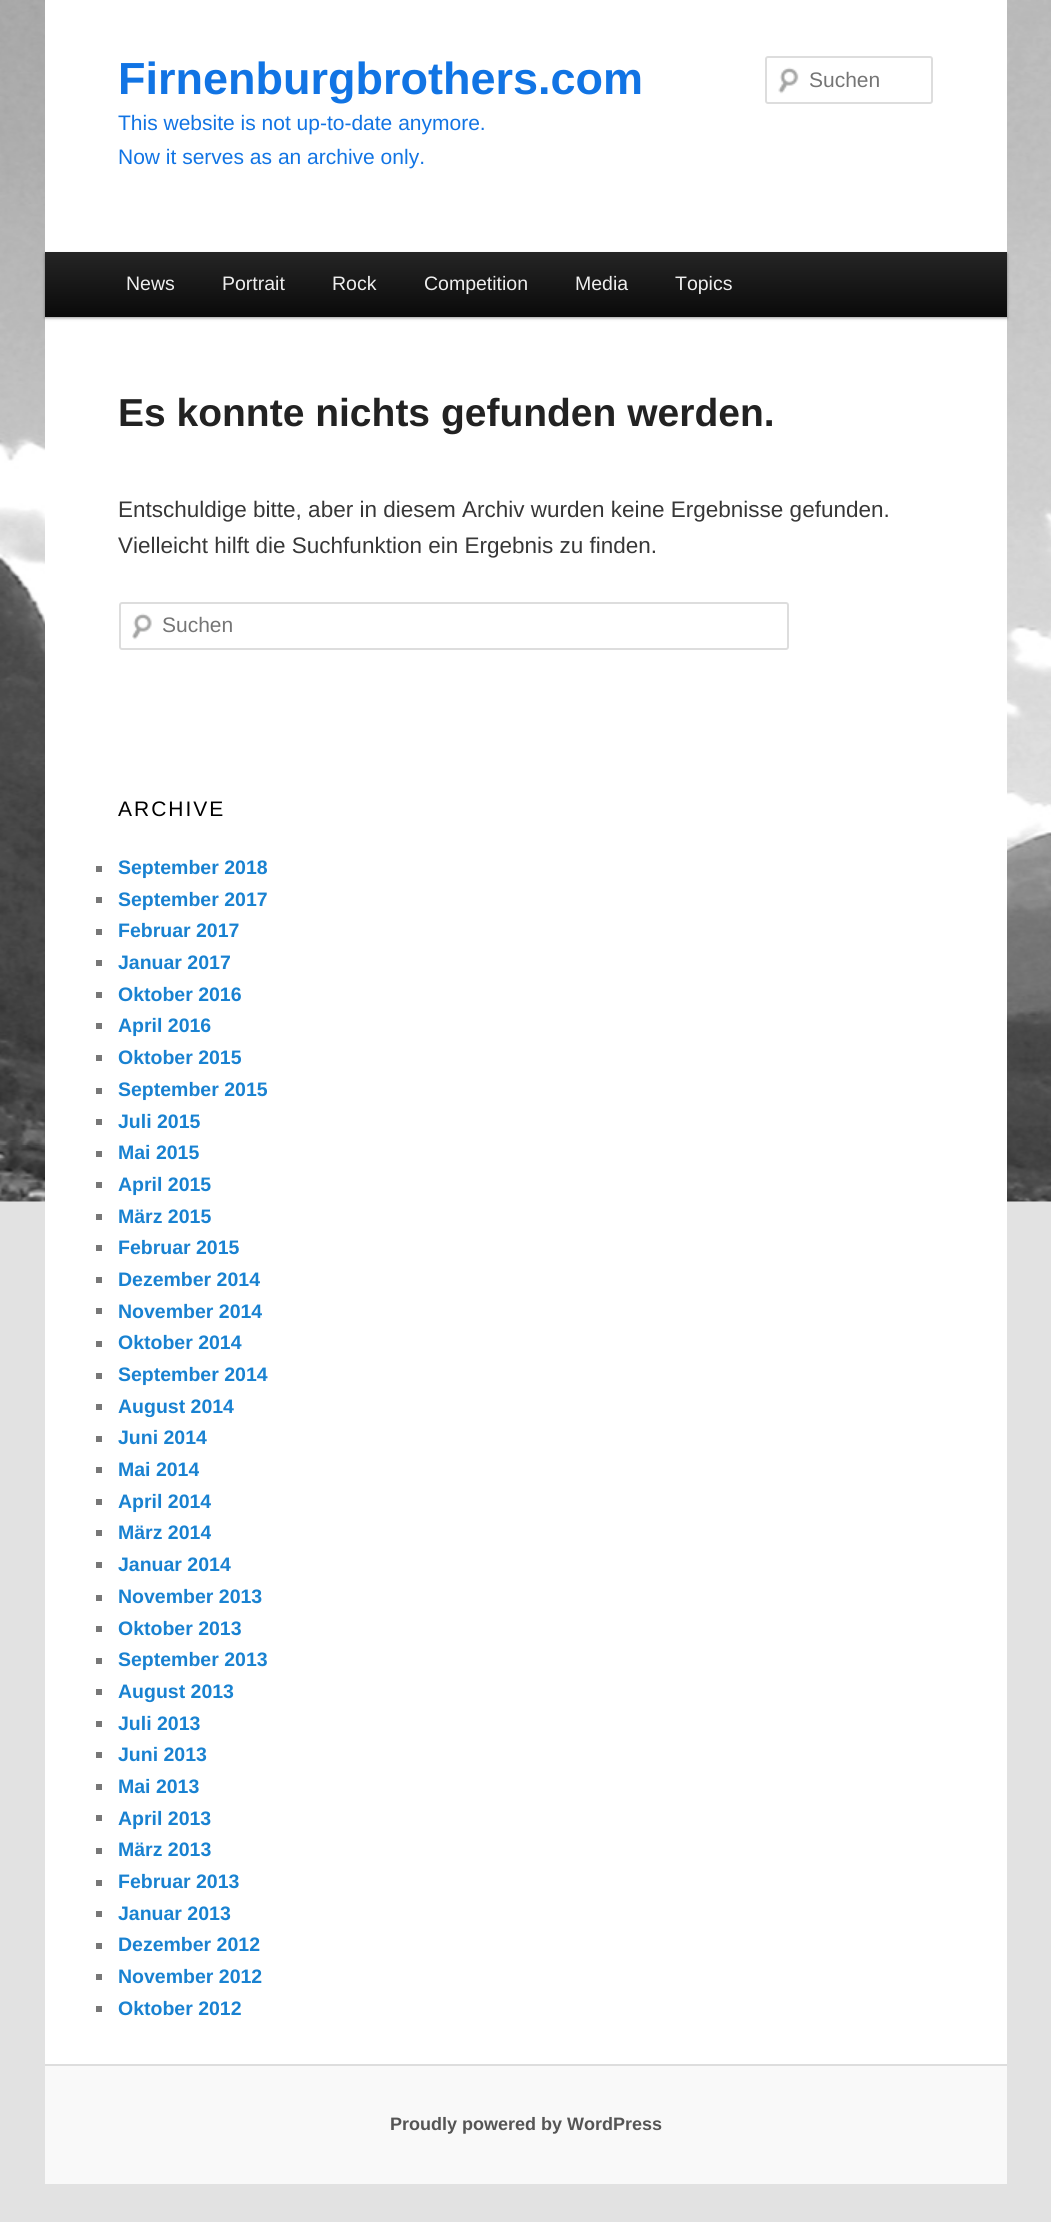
#include <cairo.h>
#include <math.h>
#include <stddef.h>


static void rgb(cairo_t *cr, int r, int g, int b)
{
	cairo_set_source_rgb(cr, r / 255.0, g / 255.0, b / 255.0);
}

static void face(cairo_t *cr, const char *family, double size, int italic, int bold)
{
	cairo_select_font_face(cr, family, italic ? CAIRO_FONT_SLANT_ITALIC : CAIRO_FONT_SLANT_NORMAL,
		bold ? CAIRO_FONT_WEIGHT_BOLD : CAIRO_FONT_WEIGHT_NORMAL);
	cairo_set_font_size(cr, size);
}

static void label(cairo_t *cr, double x, double y, const char *s)
{
	cairo_move_to(cr, x, y);
	cairo_show_text(cr, s);
}

static void tracked(cairo_t *cr, double x, double y, const char *s, double letter, double word)
{
	cairo_move_to(cr, x, y);
	while (*s) {
		char ch[5] = {0};
		int n = 0;
		do ch[n++] = *s++; while ((*s & 0xC0) == 0x80);
		cairo_show_text(cr, ch);
		cairo_rel_move_to(cr, letter + word * (*ch == ' '), 0);
	}
}

static void rect(cairo_t *cr, double x, double y, double w, double h)
{
	cairo_rectangle(cr, x, y, w, h);
	cairo_fill(cr);
}

static void rrect(cairo_t *cr, double x, double y, double w, double h, double r)
{
	cairo_new_sub_path(cr);
	cairo_arc(cr, x + w - r, y + h - r, r, 0, M_PI / 2);
	cairo_arc(cr, x + r, y + h - r, r, M_PI / 2, M_PI);
	cairo_arc(cr, x + r, y + r, r, M_PI, 1.5 * M_PI);
	cairo_arc(cr, x + w - r, y + r, r, 1.5 * M_PI, 2 * M_PI);
	cairo_close_path(cr);
}

static void soft_shadow(cairo_t *cr, double x, double y, double w, double h, double r, double blur, double alpha)
{
	cairo_push_group_with_content(cr, CAIRO_CONTENT_ALPHA);
	cairo_set_operator(cr, CAIRO_OPERATOR_SOURCE);
	for (int i = 15; i >= -15 && fmin(w, h) + blur * i / 3 > 0; i -= 2) {
		double e = blur * i / 6;
		cairo_set_source_rgba(cr, 0, 0, 0, alpha * erfc((i - 1) / 8.5) / 2);
		rrect(cr, x - e, y - e, w + 2 * e, h + 2 * e, fmax(0, fmin(r + e + blur * .6, fmin(w, h) / 2 + e)));
		cairo_fill(cr);
	}
	cairo_pattern_t *soft = cairo_pop_group(cr);
	cairo_mask(cr, soft);
	cairo_pattern_destroy(soft);
}

static void image(cairo_t *cr, const char *path, double x, double y, double w, double h)
{
	cairo_surface_t *image = cairo_image_surface_create_from_png(path);
	cairo_save(cr);
	cairo_set_source_surface(cr, image, x, y);
	cairo_rectangle(cr, x, y, w, h);
	cairo_fill(cr);
	cairo_restore(cr);
	cairo_surface_destroy(image);
}

static void draw(cairo_t *cr) {
	cairo_pattern_t *gradient;
	rgb(cr, 226, 226, 226);
	cairo_paint(cr);
	image(cr, "image0.png", 0, 0, 1051, 1202);
	rgb(cr, 255, 255, 255);
	rect(cr, 45, 0, 962, 2064);
	face(cr, "Liberation Sans", 45, 0, 1);
	rgb(cr, 17, 116, 228);
	label(cr, 118, 94, "Firnenburgbrothers.com");
	face(cr, "Liberation Sans", 21, 0, 0);
	label(cr, 118, 130, "This website is not up-to-date anymore.");
	label(cr, 118, 164, "Now it serves as an archive only.");
	image(cr, "image1.png", 778, 67, 21, 27);
	rrect(cr, 766, 57, 166, 46, 2);
	rgb(cr, 221, 221, 221);
	cairo_stroke(cr);
	rgb(cr, 117, 117, 117);
	label(cr, 809, 87, "Suchen");
	rgb(cr, 0, 0, 0);
	soft_shadow(cr, 45, 254, 962, 64, 0, 1.5, 0.4);
	gradient = cairo_pattern_create_linear(526, 252, 526, 317);
	cairo_pattern_add_color_stop_rgba(gradient, 0, 0.145, 0.145, 0.145, 1);
	cairo_pattern_add_color_stop_rgba(gradient, 1, 0.039, 0.039, 0.039, 1);
	cairo_set_source(cr, gradient);
	cairo_pattern_destroy(gradient);
	rect(cr, 45, 252, 962, 65);
	face(cr, "Liberation Sans", 19.5, 0, 0);
	rgb(cr, 238, 238, 238);
	label(cr, 126, 290, "News");
	label(cr, 222, 290, "Portrait");
	label(cr, 332, 290, "Rock");
	label(cr, 424, 290, "Competition");
	label(cr, 575, 290, "Media");
	label(cr, 675, 290, "Topics");
	face(cr, "Liberation Sans", 39, 0, 1);
	rgb(cr, 34, 34, 34);
	label(cr, 118, 426, "Es konnte nichts gefunden werden.");
	face(cr, "Liberation Sans", 22.5, 0, 0);
	rgb(cr, 55, 55, 55);
	label(cr, 118, 517, "Entschuldige bitte, aber in diesem Archiv wurden keine Ergebnisse gefunden.");
	label(cr, 118, 553, "Vielleicht hilft die Suchfunktion ein Ergebnis zu finden.");
	image(cr, "image2.png", 132, 613, 20, 27);
	rrect(cr, 120, 603, 668, 46, 2);
	rgb(cr, 221, 221, 221);
	cairo_stroke(cr);
	face(cr, "Liberation Sans", 21, 0, 0);
	rgb(cr, 117, 117, 117);
	label(cr, 162, 632, "Suchen");
	rgb(cr, 0, 0, 0);
	tracked(cr, 118, 816, "ARCHIVE", 2, 0);
	rgb(cr, 119, 119, 119);
	rect(cr, 96, 866, 6, 6);
	face(cr, "Liberation Sans", 19.5, 0, 1);
	rgb(cr, 25, 130, 209);
	label(cr, 118, 874, "September 2018");
	rgb(cr, 119, 119, 119);
	rect(cr, 96, 897, 6, 6);
	rgb(cr, 25, 130, 209);
	label(cr, 118, 906, "September 2017");
	rgb(cr, 119, 119, 119);
	rect(cr, 96, 929, 6, 6);
	rgb(cr, 25, 130, 209);
	label(cr, 118, 937, "Februar 2017");
	rgb(cr, 119, 119, 119);
	rect(cr, 96, 960, 6, 6);
	rgb(cr, 25, 130, 209);
	label(cr, 118, 969, "Januar 2017");
	rgb(cr, 119, 119, 119);
	rect(cr, 96, 992, 6, 6);
	rgb(cr, 25, 130, 209);
	label(cr, 118, 1001, "Oktober 2016");
	rgb(cr, 119, 119, 119);
	rect(cr, 96, 1023, 6, 6);
	rgb(cr, 25, 130, 209);
	label(cr, 118, 1032, "April 2016");
	rgb(cr, 119, 119, 119);
	rect(cr, 96, 1055, 6, 6);
	rgb(cr, 25, 130, 209);
	label(cr, 118, 1064, "Oktober 2015");
	rgb(cr, 119, 119, 119);
	rect(cr, 96, 1088, 6, 6);
	rgb(cr, 25, 130, 209);
	label(cr, 118, 1096, "September 2015");
	rgb(cr, 119, 119, 119);
	rect(cr, 96, 1119, 6, 6);
	rgb(cr, 25, 130, 209);
	label(cr, 118, 1128, "Juli 2015");
	rgb(cr, 119, 119, 119);
	rect(cr, 96, 1151, 6, 6);
	rgb(cr, 25, 130, 209);
	label(cr, 118, 1159, "Mai 2015");
	rgb(cr, 119, 119, 119);
	rect(cr, 96, 1182, 6, 6);
	rgb(cr, 25, 130, 209);
	label(cr, 118, 1191, "April 2015");
	rgb(cr, 119, 119, 119);
	rect(cr, 96, 1214, 6, 6);
	rgb(cr, 25, 130, 209);
	label(cr, 118, 1223, "März 2015");
	rgb(cr, 119, 119, 119);
	rect(cr, 96, 1245, 6, 6);
	rgb(cr, 25, 130, 209);
	label(cr, 118, 1254, "Februar 2015");
	rgb(cr, 119, 119, 119);
	rect(cr, 96, 1277, 6, 6);
	rgb(cr, 25, 130, 209);
	label(cr, 118, 1286, "Dezember 2014");
	rgb(cr, 119, 119, 119);
	rect(cr, 96, 1308, 6, 6);
	rgb(cr, 25, 130, 209);
	label(cr, 118, 1318, "November 2014");
	rgb(cr, 119, 119, 119);
	rect(cr, 96, 1341, 6, 6);
	rgb(cr, 25, 130, 209);
	label(cr, 118, 1349, "Oktober 2014");
	rgb(cr, 119, 119, 119);
	rect(cr, 96, 1373, 6, 6);
	rgb(cr, 25, 130, 209);
	label(cr, 118, 1381, "September 2014");
	rgb(cr, 119, 119, 119);
	rect(cr, 96, 1404, 6, 6);
	rgb(cr, 25, 130, 209);
	label(cr, 118, 1413, "August 2014");
	rgb(cr, 119, 119, 119);
	rect(cr, 96, 1436, 6, 6);
	rgb(cr, 25, 130, 209);
	label(cr, 118, 1444, "Juni 2014");
	rgb(cr, 119, 119, 119);
	rect(cr, 96, 1467, 6, 6);
	rgb(cr, 25, 130, 209);
	label(cr, 118, 1476, "Mai 2014");
	rgb(cr, 119, 119, 119);
	rect(cr, 96, 1499, 6, 6);
	rgb(cr, 25, 130, 209);
	label(cr, 118, 1508, "April 2014");
	rgb(cr, 119, 119, 119);
	rect(cr, 96, 1530, 6, 6);
	rgb(cr, 25, 130, 209);
	label(cr, 118, 1539, "März 2014");
	rgb(cr, 119, 119, 119);
	rect(cr, 96, 1562, 6, 6);
	rgb(cr, 25, 130, 209);
	label(cr, 118, 1571, "Januar 2014");
	rgb(cr, 119, 119, 119);
	rect(cr, 96, 1595, 6, 6);
	rgb(cr, 25, 130, 209);
	label(cr, 118, 1603, "November 2013");
	rgb(cr, 119, 119, 119);
	rect(cr, 96, 1626, 6, 6);
	rgb(cr, 25, 130, 209);
	label(cr, 118, 1635, "Oktober 2013");
	rgb(cr, 119, 119, 119);
	rect(cr, 96, 1658, 6, 6);
	rgb(cr, 25, 130, 209);
	label(cr, 118, 1666, "September 2013");
	rgb(cr, 119, 119, 119);
	rect(cr, 96, 1689, 6, 6);
	rgb(cr, 25, 130, 209);
	label(cr, 118, 1698, "August 2013");
	rgb(cr, 119, 119, 119);
	rect(cr, 96, 1721, 6, 6);
	rgb(cr, 25, 130, 209);
	label(cr, 118, 1730, "Juli 2013");
	rgb(cr, 119, 119, 119);
	rect(cr, 96, 1752, 6, 6);
	rgb(cr, 25, 130, 209);
	label(cr, 118, 1761, "Juni 2013");
	rgb(cr, 119, 119, 119);
	rect(cr, 96, 1784, 6, 6);
	rgb(cr, 25, 130, 209);
	label(cr, 118, 1793, "Mai 2013");
	rgb(cr, 119, 119, 119);
	rect(cr, 96, 1815, 6, 6);
	rgb(cr, 25, 130, 209);
	label(cr, 118, 1825, "April 2013");
	rgb(cr, 119, 119, 119);
	rect(cr, 96, 1848, 6, 6);
	rgb(cr, 25, 130, 209);
	label(cr, 118, 1856, "März 2013");
	rgb(cr, 119, 119, 119);
	rect(cr, 96, 1880, 6, 6);
	rgb(cr, 25, 130, 209);
	label(cr, 118, 1888, "Februar 2013");
	rgb(cr, 119, 119, 119);
	rect(cr, 96, 1911, 6, 6);
	rgb(cr, 25, 130, 209);
	label(cr, 118, 1920, "Januar 2013");
	rgb(cr, 119, 119, 119);
	rect(cr, 96, 1943, 6, 6);
	rgb(cr, 25, 130, 209);
	label(cr, 118, 1951, "Dezember 2012");
	rgb(cr, 119, 119, 119);
	rect(cr, 96, 1974, 6, 6);
	rgb(cr, 25, 130, 209);
	label(cr, 118, 1983, "November 2012");
	rgb(cr, 119, 119, 119);
	rect(cr, 96, 2006, 6, 6);
	rgb(cr, 25, 130, 209);
	label(cr, 118, 2015, "Oktober 2012");
	rgb(cr, 249, 249, 249);
	rect(cr, 45, 2066, 962, 118);
	rgb(cr, 221, 221, 221);
	rect(cr, 45, 2064, 962, 2);
	face(cr, "Liberation Sans", 18, 0, 1);
	rgb(cr, 85, 85, 85);
	label(cr, 390, 2130, "Proudly powered by WordPress");
}

int main(void) {
	cairo_surface_t *surface = cairo_image_surface_create(CAIRO_FORMAT_RGB24, 1051, 2222);
	cairo_t *cr = cairo_create(surface);
	cairo_font_options_t *options = cairo_font_options_create();
	cairo_font_options_set_hint_metrics(options, CAIRO_HINT_METRICS_OFF);
	cairo_font_options_set_hint_style(options, CAIRO_HINT_STYLE_NONE);
	cairo_set_font_options(cr, options);
	cairo_set_miter_limit(cr, 4);
	draw(cr);
	cairo_surface_write_to_png(surface, "render.png");
	cairo_font_options_destroy(options);
	cairo_destroy(cr);
	cairo_surface_destroy(surface);
	return 0;
}
